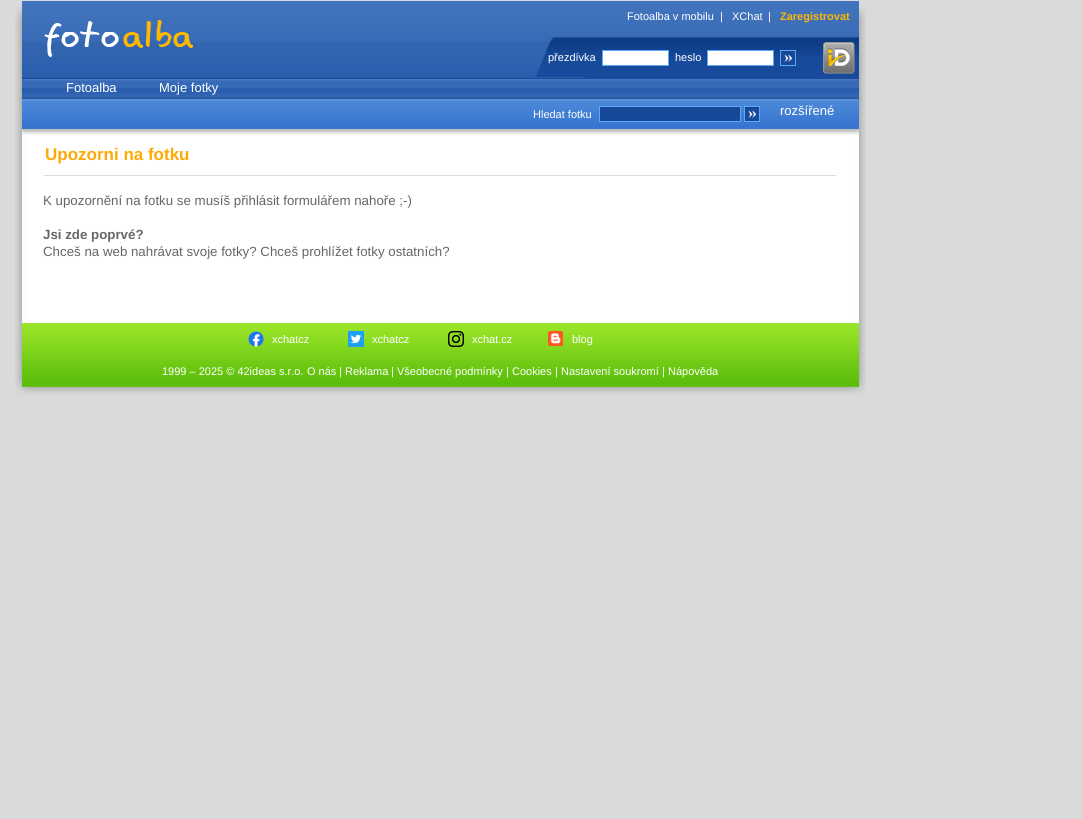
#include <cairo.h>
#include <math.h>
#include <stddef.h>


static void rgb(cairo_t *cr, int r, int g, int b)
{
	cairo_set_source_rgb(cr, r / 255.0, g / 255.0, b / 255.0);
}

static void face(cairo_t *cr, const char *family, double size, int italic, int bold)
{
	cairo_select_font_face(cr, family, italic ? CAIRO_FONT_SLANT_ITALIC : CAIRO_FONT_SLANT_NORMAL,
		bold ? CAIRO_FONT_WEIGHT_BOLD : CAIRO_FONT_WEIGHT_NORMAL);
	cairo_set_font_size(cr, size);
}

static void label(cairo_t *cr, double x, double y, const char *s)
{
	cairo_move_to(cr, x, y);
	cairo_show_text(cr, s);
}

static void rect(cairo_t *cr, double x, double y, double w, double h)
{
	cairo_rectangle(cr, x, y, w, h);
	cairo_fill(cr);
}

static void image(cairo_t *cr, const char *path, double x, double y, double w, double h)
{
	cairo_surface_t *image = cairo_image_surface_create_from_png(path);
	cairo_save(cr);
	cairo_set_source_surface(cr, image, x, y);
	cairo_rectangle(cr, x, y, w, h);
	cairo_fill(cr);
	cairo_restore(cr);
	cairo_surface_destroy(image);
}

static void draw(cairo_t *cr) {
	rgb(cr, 217, 219, 219);
	cairo_paint(cr);
	image(cr, "image0.png", 15, 1, 851, 76);
	face(cr, "Liberation Sans", 11, 0, 0);
	rgb(cr, 255, 255, 255);
	label(cr, 627, 20, "Fotoalba v mobilu");
	label(cr, 720, 20, "|");
	label(cr, 732, 20, "XChat");
	label(cr, 768, 20, "|");
	face(cr, "Liberation Sans", 11, 0, 1);
	rgb(cr, 253, 184, 1);
	label(cr, 780, 20, "Zaregistrovat");
	face(cr, "Liberation Sans", 11, 0, 0);
	rgb(cr, 255, 255, 255);
	label(cr, 548, 61, "přezdívka");
	cairo_rectangle(cr, 602.5, 50.5, 66, 15);
	cairo_fill_preserve(cr);
	rgb(cr, 94, 168, 250);
	cairo_set_line_width(cr, 1);
	cairo_stroke(cr);
	rgb(cr, 255, 255, 255);
	label(cr, 675, 61, "heslo");
	cairo_rectangle(cr, 707.5, 50.5, 66, 15);
	cairo_fill_preserve(cr);
	rgb(cr, 94, 168, 250);
	cairo_stroke(cr);
	image(cr, "image1.png", 780, 50, 16, 16);
	image(cr, "image2.png", 823, 42, 32, 32);
	image(cr, "image3.png", 15, 77, 851, 23);
	face(cr, "Liberation Sans", 13, 0, 0);
	rgb(cr, 255, 255, 255);
	label(cr, 66, 92, "Fotoalba");
	label(cr, 159, 92, "Moje fotky");
	image(cr, "image4.png", 15, 100, 851, 35);
	face(cr, "Liberation Sans", 11, 0, 0);
	label(cr, 533, 118, "Hledat fotku");
	rgb(cr, 22, 72, 152);
	cairo_rectangle(cr, 599.5, 106.5, 141, 15);
	cairo_fill_preserve(cr);
	rgb(cr, 94, 168, 250);
	cairo_stroke(cr);
	image(cr, "image1.png", 744, 106, 16, 16);
	face(cr, "Liberation Sans", 13, 0, 0);
	rgb(cr, 255, 255, 255);
	label(cr, 780, 115, "rozšířené");
	image(cr, "image5.png", 15, 135, 851, 188);
	face(cr, "Liberation Sans", 17, 0, 1);
	rgb(cr, 254, 169, 6);
	label(cr, 45, 160, "Upozorni na fotku");
	rgb(cr, 221, 221, 221);
	rect(cr, 44, 175, 792, 1);
	face(cr, "Liberation Sans", 13.3, 0, 0);
	rgb(cr, 102, 102, 102);
	label(cr, 43, 205, "K upozornění na fotku se musíš přihlásit formulářem nahoře ;-)");
	face(cr, "Liberation Sans", 13.3, 0, 1);
	label(cr, 43, 239, "Jsi zde poprvé?");
	face(cr, "Liberation Sans", 13.3, 0, 0);
	label(cr, 43, 256, "Chceš na web nahrávat svoje fotky? Chceš prohlížet fotky ostatních?");
	image(cr, "image6.png", 15, 323, 851, 77);
	image(cr, "image7.png", 248, 331, 16, 16);
	face(cr, "Liberation Sans", 11, 0, 0);
	rgb(cr, 255, 255, 255);
	label(cr, 272, 343, "xchatcz");
	image(cr, "image8.png", 348, 331, 16, 16);
	label(cr, 372, 343, "xchatcz");
	image(cr, "image9.png", 448, 331, 16, 16);
	label(cr, 472, 343, "xchat.cz");
	image(cr, "image10.png", 548, 331, 15, 15);
	label(cr, 572, 343, "blog");
	label(cr, 162, 375, "1999 – 2025 © 42ideas s.r.o.");
	label(cr, 307, 375, "O nás");
	label(cr, 339, 375, "|");
	label(cr, 345, 375, "Reklama");
	label(cr, 391, 375, "|");
	label(cr, 397, 375, "Všeobecné podmínky");
	label(cr, 506, 375, "|");
	label(cr, 512, 375, "Cookies");
	label(cr, 555, 375, "|");
	label(cr, 561, 375, "Nastavení soukromí");
	label(cr, 662, 375, "|");
	label(cr, 668, 375, "Nápověda");
}

int main(void) {
	cairo_surface_t *surface = cairo_image_surface_create(CAIRO_FORMAT_RGB24, 1082, 819);
	cairo_t *cr = cairo_create(surface);
	cairo_font_options_t *options = cairo_font_options_create();
	cairo_font_options_set_hint_metrics(options, CAIRO_HINT_METRICS_OFF);
	cairo_font_options_set_hint_style(options, CAIRO_HINT_STYLE_NONE);
	cairo_set_font_options(cr, options);
	cairo_set_miter_limit(cr, 4);
	draw(cr);
	cairo_surface_write_to_png(surface, "render.png");
	cairo_font_options_destroy(options);
	cairo_destroy(cr);
	cairo_surface_destroy(surface);
	return 0;
}
